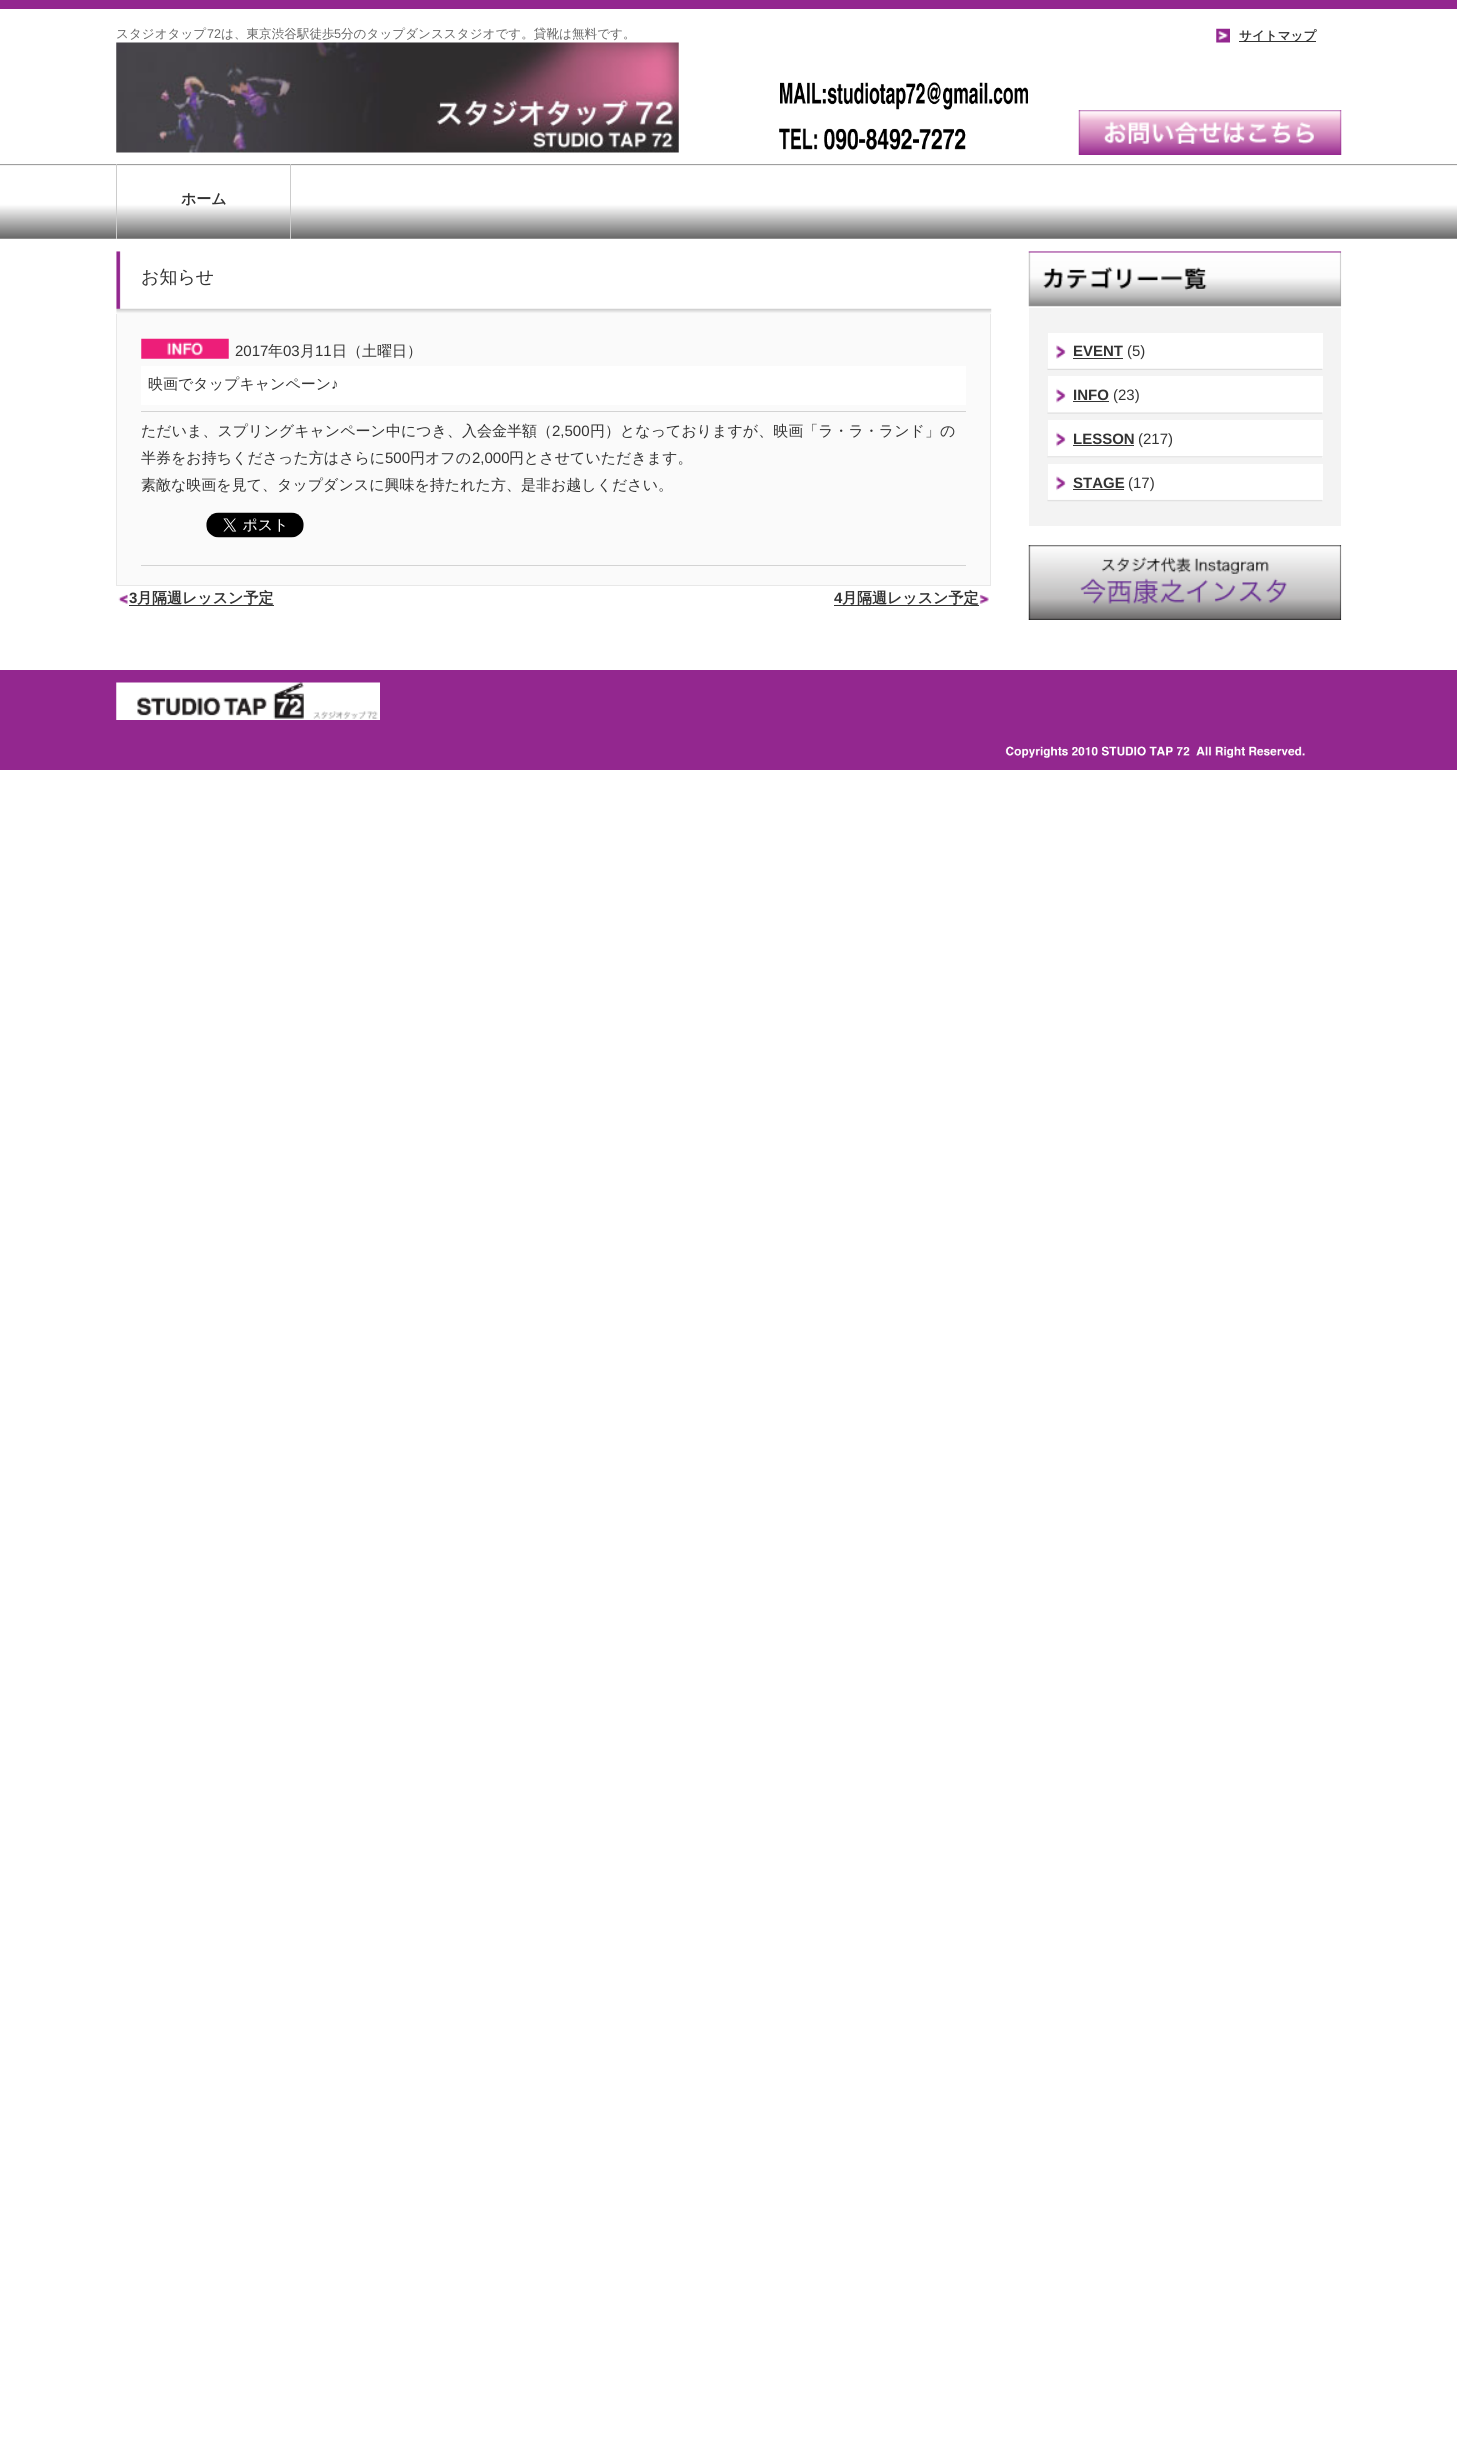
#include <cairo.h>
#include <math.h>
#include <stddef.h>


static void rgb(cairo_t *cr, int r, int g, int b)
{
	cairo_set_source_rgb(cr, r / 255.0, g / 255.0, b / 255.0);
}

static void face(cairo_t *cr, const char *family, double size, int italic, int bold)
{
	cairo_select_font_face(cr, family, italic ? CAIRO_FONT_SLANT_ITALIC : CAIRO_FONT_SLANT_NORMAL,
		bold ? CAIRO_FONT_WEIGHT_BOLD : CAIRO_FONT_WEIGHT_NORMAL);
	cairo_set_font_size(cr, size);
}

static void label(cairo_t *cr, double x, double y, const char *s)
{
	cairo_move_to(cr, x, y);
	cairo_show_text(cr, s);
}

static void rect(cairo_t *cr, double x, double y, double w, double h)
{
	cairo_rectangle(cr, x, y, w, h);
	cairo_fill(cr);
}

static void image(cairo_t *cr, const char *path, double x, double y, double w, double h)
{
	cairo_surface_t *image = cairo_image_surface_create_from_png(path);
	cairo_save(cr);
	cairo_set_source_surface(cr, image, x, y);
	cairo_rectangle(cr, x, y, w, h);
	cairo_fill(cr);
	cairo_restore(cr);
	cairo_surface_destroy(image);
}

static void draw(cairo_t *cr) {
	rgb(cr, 255, 255, 255);
	cairo_paint(cr);
	rgb(cr, 147, 39, 143);
	rect(cr, 0, 0, 1457, 9);
	face(cr, "WenQuanYi Zen Hei Medium", 12.6, 0, 0);
	rgb(cr, 102, 102, 102);
	label(cr, 116, 38, "スタジオタップ");
	face(cr, "Liberation Sans", 12.6, 0, 0);
	label(cr, 207, 38, "72");
	face(cr, "WenQuanYi Zen Hei Medium", 12.6, 0, 0);
	label(cr, 221, 38, "は、東京渋谷駅徒歩");
	face(cr, "Liberation Sans", 12.6, 0, 0);
	label(cr, 334, 38, "5");
	face(cr, "WenQuanYi Zen Hei Medium", 12.6, 0, 0);
	label(cr, 341, 38, "分のタップダンススタジオです。貸靴は無料です。");
	image(cr, "image0.png", 1216, 28, 14, 15);
	rgb(cr, 51, 51, 51);
	rect(cr, 1239, 41, 77, 1);
	face(cr, "WenQuanYi Zen Hei", 12.6, 0, 1);
	label(cr, 1239, 40, "サイトマップ");
	image(cr, "image1.png", 116, 42, 563, 111);
	image(cr, "image2.png", 780, 82, 248, 28);
	image(cr, "image3.png", 779, 128, 187, 22);
	image(cr, "image4.png", 1078, 110, 264, 45);
	image(cr, "image5.png", 0, 164, 1457, 75);
	rgb(cr, 204, 204, 204);
	rect(cr, 290, 164, 1, 75);
	rect(cr, 116, 164, 1, 75);
	face(cr, "WenQuanYi Zen Hei", 15, 0, 1);
	rgb(cr, 51, 51, 51);
	label(cr, 181, 204, "ホーム");
	image(cr, "image6.png", 116, 251, 876, 63);
	face(cr, "WenQuanYi Zen Hei Medium", 18, 0, 0);
	label(cr, 141, 283, "お知らせ");
	rgb(cr, 250, 250, 250);
	rect(cr, 117, 314, 873, 271);
	rgb(cr, 232, 232, 232);
	rect(cr, 990, 314, 1, 272);
	rect(cr, 116, 585, 875, 1);
	rect(cr, 116, 314, 1, 272);
	image(cr, "image7.png", 141, 338, 88, 21);
	face(cr, "Liberation Sans", 15, 0, 0);
	rgb(cr, 51, 51, 51);
	label(cr, 235, 356, "2017");
	face(cr, "WenQuanYi Zen Hei Medium", 15, 0, 0);
	label(cr, 268, 356, "年");
	face(cr, "Liberation Sans", 15, 0, 0);
	label(cr, 283, 356, "03");
	face(cr, "WenQuanYi Zen Hei Medium", 15, 0, 0);
	label(cr, 300, 356, "月");
	face(cr, "Liberation Sans", 15, 0, 0);
	label(cr, 315, 356, "11");
	face(cr, "WenQuanYi Zen Hei Medium", 15, 0, 0);
	label(cr, 332, 356, "日（土曜日）");
	rgb(cr, 255, 255, 255);
	rect(cr, 141, 366, 825, 39);
	rgb(cr, 51, 51, 51);
	label(cr, 148, 389, "映画でタップキャンペーン");
	face(cr, "Liberation Sans", 15, 0, 0);
	label(cr, 331, 389, "♪");
	rgb(cr, 211, 211, 211);
	rect(cr, 141, 411, 825, 1);
	rect(cr, 141, 565, 825, 1);
	face(cr, "WenQuanYi Zen Hei Medium", 15, 0, 0);
	rgb(cr, 51, 51, 51);
	label(cr, 141, 436, "ただいま、スプリングキャンペーン中につき、入会金半額（");
	face(cr, "Liberation Sans", 15, 0, 0);
	label(cr, 552, 436, "2,500");
	face(cr, "WenQuanYi Zen Hei Medium", 15, 0, 0);
	label(cr, 590, 436, "円）となっておりますが、映画「ラ・ラ・ランド」の");
	label(cr, 141, 463, "半券をお持ちくださった方はさらに");
	face(cr, "Liberation Sans", 15, 0, 0);
	label(cr, 385, 463, "500");
	face(cr, "WenQuanYi Zen Hei Medium", 15, 0, 0);
	label(cr, 410, 463, "円オフの");
	face(cr, "Liberation Sans", 15, 0, 0);
	label(cr, 472, 463, "2,000");
	face(cr, "WenQuanYi Zen Hei Medium", 15, 0, 0);
	label(cr, 509, 463, "円とさせていただきます。");
	label(cr, 141, 490, "素敵な映画を見て、タップダンスに興味を持たれた方、是非お越しください。");
	image(cr, "image8.png", 206, 512, 98, 26);
	image(cr, "image9.png", 118, 594, 10, 10);
	face(cr, "Liberation Sans", 15, 0, 1);
	label(cr, 129, 603, "3");
	rect(cr, 129, 605, 145, 1);
	face(cr, "WenQuanYi Zen Hei", 15, 0, 1);
	label(cr, 137, 603, "月隔週レッスン予定");
	image(cr, "image10.png", 979, 594, 10, 10);
	face(cr, "Liberation Sans", 15, 0, 1);
	label(cr, 834, 603, "4");
	rect(cr, 834, 605, 145, 1);
	face(cr, "WenQuanYi Zen Hei", 15, 0, 1);
	label(cr, 842, 603, "月隔週レッスン予定");
	image(cr, "image11.png", 1028, 251, 314, 56);
	rgb(cr, 243, 243, 243);
	rect(cr, 1029, 308, 312, 218);
	rgb(cr, 255, 255, 255);
	rect(cr, 1048, 333, 275, 37);
	image(cr, "image12.png", 1047, 345, 276, 25);
	face(cr, "Liberation Sans", 15, 0, 1);
	rgb(cr, 51, 51, 51);
	label(cr, 1073, 356, "EVENT");
	rect(cr, 1073, 358, 50, 1);
	face(cr, "Liberation Sans", 15, 0, 0);
	label(cr, 1127, 356, "(5)");
	rgb(cr, 255, 255, 255);
	rect(cr, 1048, 376, 275, 38);
	image(cr, "image13.png", 1047, 388, 276, 26);
	face(cr, "Liberation Sans", 15, 0, 1);
	rgb(cr, 51, 51, 51);
	label(cr, 1073, 400, "INFO");
	rect(cr, 1073, 401, 36, 1);
	face(cr, "Liberation Sans", 15, 0, 0);
	label(cr, 1113, 400, "(23)");
	rgb(cr, 255, 255, 255);
	rect(cr, 1048, 420, 275, 38);
	image(cr, "image14.png", 1047, 432, 276, 26);
	face(cr, "Liberation Sans", 15, 0, 1);
	rgb(cr, 51, 51, 51);
	label(cr, 1073, 444, "LESSON");
	rect(cr, 1073, 445, 61, 1);
	face(cr, "Liberation Sans", 15, 0, 0);
	label(cr, 1138, 444, "(217)");
	rgb(cr, 255, 255, 255);
	rect(cr, 1048, 464, 275, 37);
	image(cr, "image15.png", 1047, 476, 276, 26);
	face(cr, "Liberation Sans", 15, 0, 1);
	rgb(cr, 51, 51, 51);
	label(cr, 1073, 488, "STAGE");
	rect(cr, 1073, 489, 51, 1);
	face(cr, "Liberation Sans", 15, 0, 0);
	label(cr, 1128, 488, "(17)");
	image(cr, "image16.png", 1028, 545, 314, 75);
	rgb(cr, 147, 39, 143);
	rect(cr, 0, 670, 1457, 100);
	image(cr, "image17.png", 116, 682, 264, 38);
	image(cr, "image18.png", 1005, 746, 300, 12);
}

int main(void) {
	cairo_surface_t *surface = cairo_image_surface_create(CAIRO_FORMAT_RGB24, 1457, 2454);
	cairo_t *cr = cairo_create(surface);
	cairo_font_options_t *options = cairo_font_options_create();
	cairo_font_options_set_hint_metrics(options, CAIRO_HINT_METRICS_OFF);
	cairo_font_options_set_hint_style(options, CAIRO_HINT_STYLE_NONE);
	cairo_set_font_options(cr, options);
	cairo_set_miter_limit(cr, 4);
	draw(cr);
	cairo_surface_write_to_png(surface, "render.png");
	cairo_font_options_destroy(options);
	cairo_destroy(cr);
	cairo_surface_destroy(surface);
	return 0;
}
